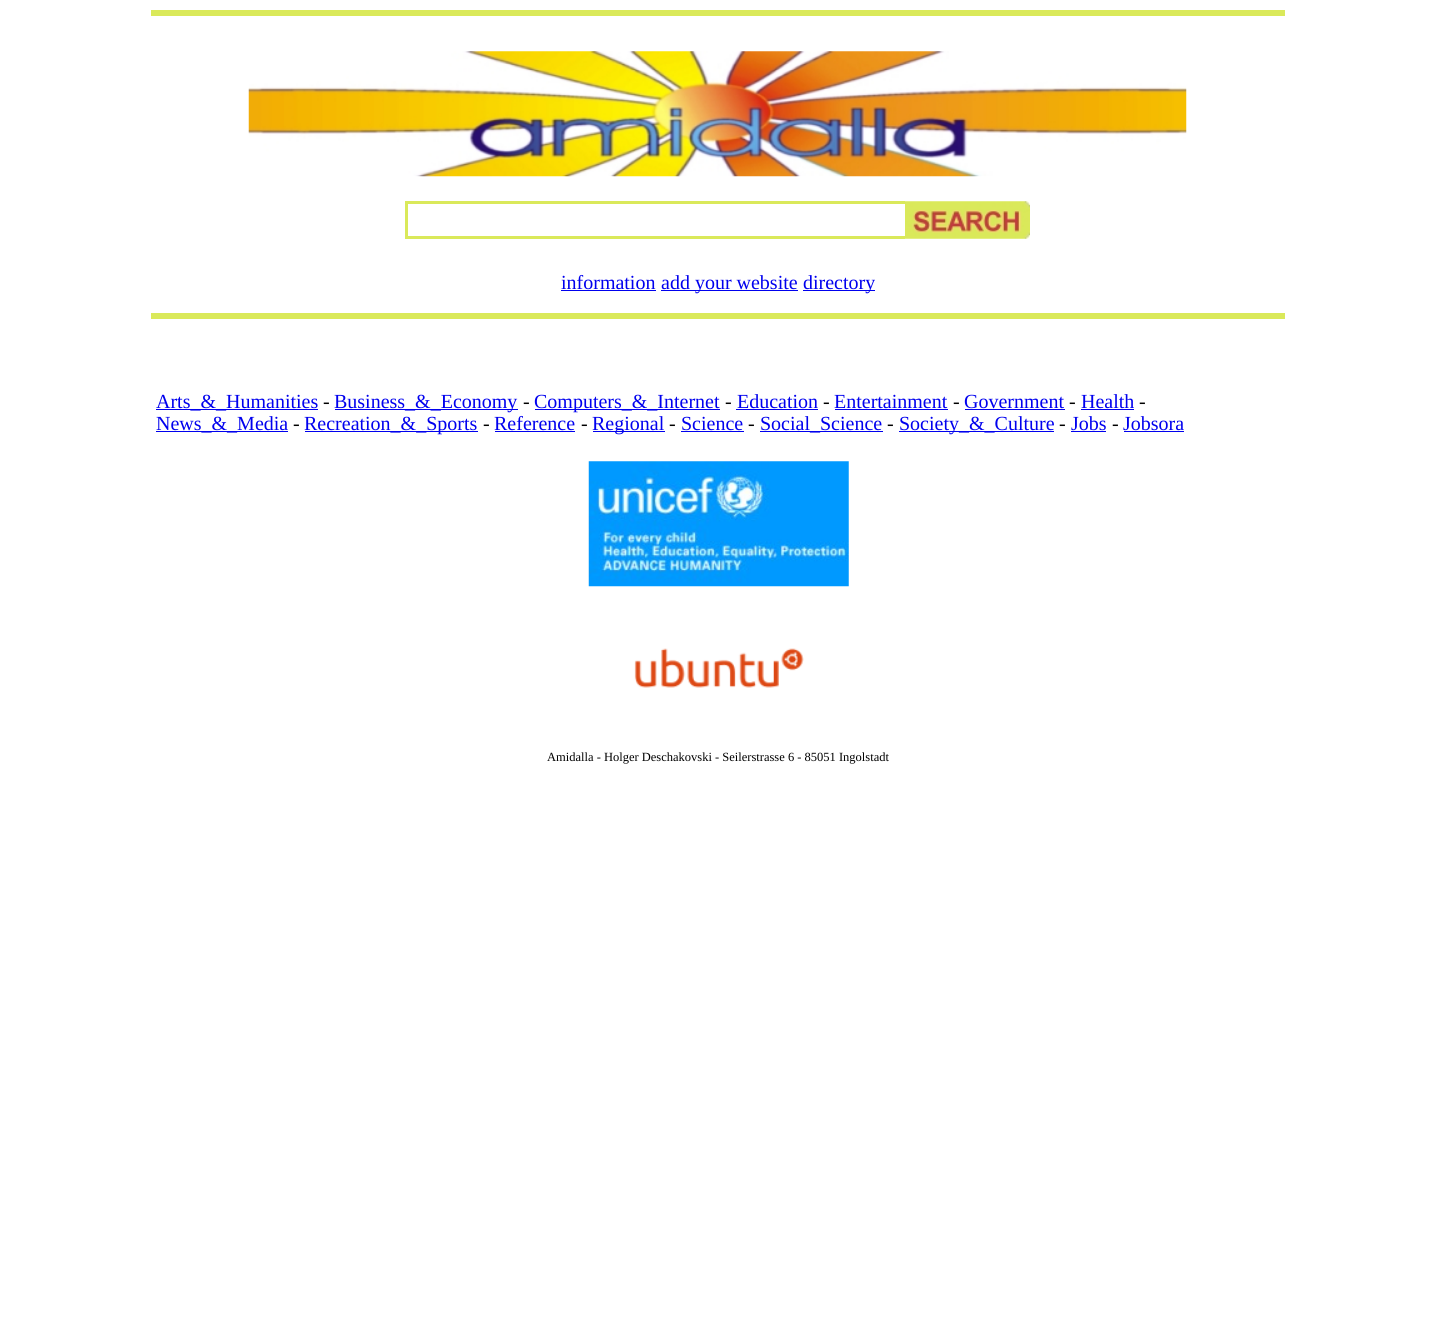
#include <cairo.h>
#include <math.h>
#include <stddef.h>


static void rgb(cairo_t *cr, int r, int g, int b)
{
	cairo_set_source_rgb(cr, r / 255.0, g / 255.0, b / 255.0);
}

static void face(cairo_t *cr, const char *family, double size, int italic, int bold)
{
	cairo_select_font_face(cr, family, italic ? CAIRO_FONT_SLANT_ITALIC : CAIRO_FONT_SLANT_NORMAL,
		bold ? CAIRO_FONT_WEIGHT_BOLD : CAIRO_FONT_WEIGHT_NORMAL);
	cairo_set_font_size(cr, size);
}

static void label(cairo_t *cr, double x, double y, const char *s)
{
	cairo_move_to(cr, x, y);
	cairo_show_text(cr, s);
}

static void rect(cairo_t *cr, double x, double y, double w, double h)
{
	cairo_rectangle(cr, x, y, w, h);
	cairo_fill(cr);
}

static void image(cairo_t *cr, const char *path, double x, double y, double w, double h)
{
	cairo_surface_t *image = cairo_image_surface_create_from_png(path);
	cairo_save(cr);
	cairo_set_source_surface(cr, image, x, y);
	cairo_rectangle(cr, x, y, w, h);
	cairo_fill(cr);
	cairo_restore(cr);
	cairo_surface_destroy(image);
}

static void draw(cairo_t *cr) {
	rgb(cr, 255, 255, 255);
	cairo_paint(cr);
	rgb(cr, 218, 233, 90);
	rect(cr, 151, 10, 1134, 6);
	rect(cr, 151, 313, 1134, 6);
	image(cr, "image0.png", 248, 51, 939, 126);
	rect(cr, 405, 201, 500, 3);
	rect(cr, 405, 236, 500, 3);
	rect(cr, 405, 201, 3, 38);
	image(cr, "image1.png", 905, 201, 125, 38);
	face(cr, "Liberation Serif", 20, 0, 0);
	rgb(cr, 0, 0, 238);
	label(cr, 561, 289, "information");
	rect(cr, 561, 290, 95, 1);
	rect(cr, 661, 290, 137, 1);
	label(cr, 661, 289, "add your website");
	rect(cr, 803, 290, 72, 1);
	label(cr, 803, 289, "directory");
	rect(cr, 156, 409, 162, 1);
	label(cr, 156, 408, "Arts_&_Humanities");
	rgb(cr, 0, 0, 0);
	label(cr, 323, 408, "-");
	rgb(cr, 0, 0, 238);
	rect(cr, 335, 409, 183, 1);
	label(cr, 334, 408, "Business_&_Economy");
	rgb(cr, 0, 0, 0);
	label(cr, 523, 408, "-");
	rgb(cr, 0, 0, 238);
	rect(cr, 535, 409, 185, 1);
	label(cr, 534, 408, "Computers_&_Internet");
	rgb(cr, 0, 0, 0);
	label(cr, 725, 408, "-");
	rgb(cr, 0, 0, 238);
	label(cr, 737, 408, "Education");
	rect(cr, 736, 409, 82, 1);
	rgb(cr, 0, 0, 0);
	label(cr, 823, 408, "-");
	rgb(cr, 0, 0, 238);
	label(cr, 834, 408, "Entertainment");
	rect(cr, 835, 409, 113, 1);
	rgb(cr, 0, 0, 0);
	label(cr, 953, 408, "-");
	rgb(cr, 0, 0, 238);
	label(cr, 964, 408, "Government");
	rect(cr, 965, 409, 100, 1);
	rgb(cr, 0, 0, 0);
	label(cr, 1069, 408, "-");
	rgb(cr, 0, 0, 238);
	label(cr, 1081, 408, "Health");
	rect(cr, 1081, 409, 53, 1);
	rgb(cr, 0, 0, 0);
	label(cr, 1139, 408, "-");
	rgb(cr, 0, 0, 238);
	rect(cr, 156, 431, 132, 1);
	label(cr, 156, 430, "News_&_Media");
	rgb(cr, 0, 0, 0);
	label(cr, 293, 430, "-");
	rgb(cr, 0, 0, 238);
	rect(cr, 305, 431, 173, 1);
	label(cr, 304, 430, "Recreation_&_Sports");
	rgb(cr, 0, 0, 0);
	label(cr, 483, 430, "-");
	rgb(cr, 0, 0, 238);
	label(cr, 494, 430, "Reference");
	rect(cr, 495, 431, 80, 1);
	rgb(cr, 0, 0, 0);
	label(cr, 581, 430, "-");
	rgb(cr, 0, 0, 238);
	rect(cr, 593, 431, 72, 1);
	label(cr, 592, 430, "Regional");
	rgb(cr, 0, 0, 0);
	label(cr, 669, 430, "-");
	rgb(cr, 0, 0, 238);
	label(cr, 681, 430, "Science");
	rect(cr, 681, 431, 63, 1);
	rgb(cr, 0, 0, 0);
	label(cr, 748, 430, "-");
	rgb(cr, 0, 0, 238);
	rect(cr, 760, 431, 123, 1);
	label(cr, 760, 430, "Social_Science");
	rgb(cr, 0, 0, 0);
	label(cr, 887, 430, "-");
	rgb(cr, 0, 0, 238);
	rect(cr, 899, 431, 155, 1);
	label(cr, 899, 430, "Society_&_Culture");
	rgb(cr, 0, 0, 0);
	label(cr, 1059, 430, "-");
	rgb(cr, 0, 0, 238);
	label(cr, 1071, 430, "Jobs");
	rect(cr, 1071, 431, 35, 1);
	rgb(cr, 0, 0, 0);
	label(cr, 1112, 430, "-");
	rgb(cr, 0, 0, 238);
	label(cr, 1123, 430, "Jobsora");
	rect(cr, 1124, 431, 60, 1);
	image(cr, "image2.png", 588, 461, 261, 126);
	image(cr, "image3.png", 634, 648, 170, 40);
	face(cr, "Liberation Serif", 12.5, 0, 0);
	rgb(cr, 0, 0, 0);
	label(cr, 547, 761, "Amidalla - Holger Deschakovski - Seilerstrasse 6 - 85051 Ingolstadt");
}

int main(void) {
	cairo_surface_t *surface = cairo_image_surface_create(CAIRO_FORMAT_RGB24, 1436, 1328);
	cairo_t *cr = cairo_create(surface);
	cairo_font_options_t *options = cairo_font_options_create();
	cairo_font_options_set_hint_metrics(options, CAIRO_HINT_METRICS_OFF);
	cairo_font_options_set_hint_style(options, CAIRO_HINT_STYLE_NONE);
	cairo_set_font_options(cr, options);
	cairo_set_miter_limit(cr, 4);
	draw(cr);
	cairo_surface_write_to_png(surface, "render.png");
	cairo_font_options_destroy(options);
	cairo_destroy(cr);
	cairo_surface_destroy(surface);
	return 0;
}
